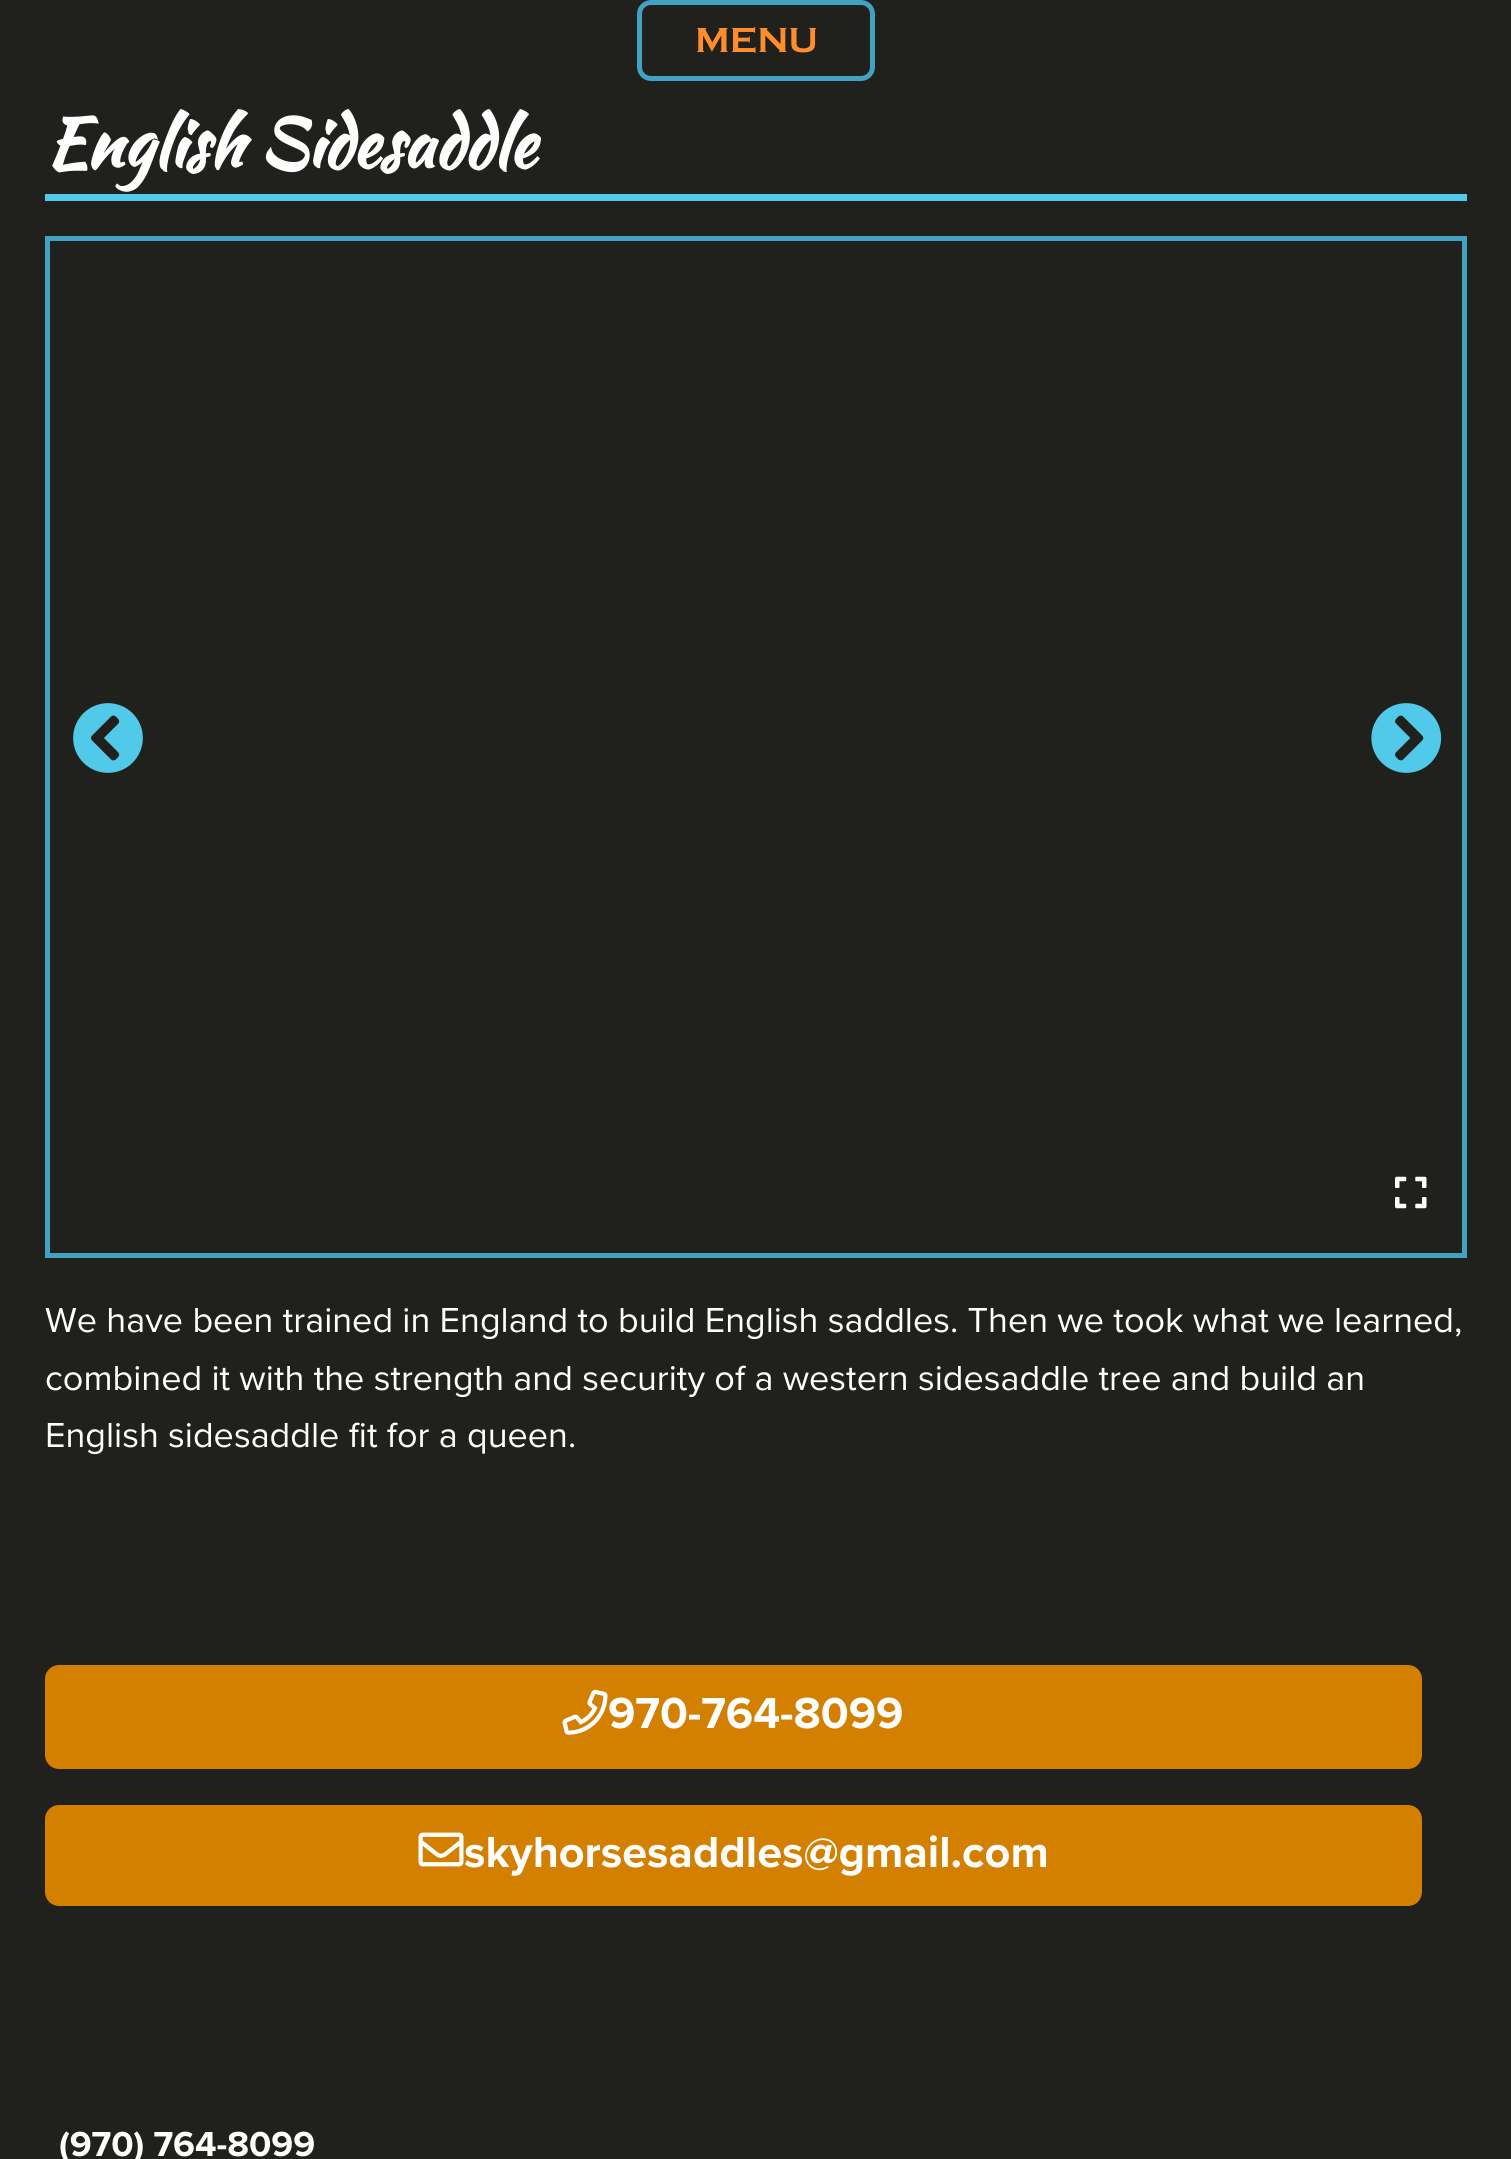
#include <cairo.h>
#include <math.h>
#include <stddef.h>


static void rgb(cairo_t *cr, int r, int g, int b)
{
	cairo_set_source_rgb(cr, r / 255.0, g / 255.0, b / 255.0);
}

static void face(cairo_t *cr, const char *family, double size, int italic, int bold)
{
	cairo_select_font_face(cr, family, italic ? CAIRO_FONT_SLANT_ITALIC : CAIRO_FONT_SLANT_NORMAL,
		bold ? CAIRO_FONT_WEIGHT_BOLD : CAIRO_FONT_WEIGHT_NORMAL);
	cairo_set_font_size(cr, size);
}

static void label(cairo_t *cr, double x, double y, const char *s)
{
	cairo_move_to(cr, x, y);
	cairo_show_text(cr, s);
}

static void rect(cairo_t *cr, double x, double y, double w, double h)
{
	cairo_rectangle(cr, x, y, w, h);
	cairo_fill(cr);
}

static void rrect(cairo_t *cr, double x, double y, double w, double h, double r)
{
	cairo_new_sub_path(cr);
	cairo_arc(cr, x + w - r, y + h - r, r, 0, M_PI / 2);
	cairo_arc(cr, x + r, y + h - r, r, M_PI / 2, M_PI);
	cairo_arc(cr, x + r, y + r, r, M_PI, 1.5 * M_PI);
	cairo_arc(cr, x + w - r, y + r, r, 1.5 * M_PI, 2 * M_PI);
	cairo_close_path(cr);
}

static void image(cairo_t *cr, const char *path, double x, double y, double w, double h)
{
	cairo_surface_t *image = cairo_image_surface_create_from_png(path);
	cairo_save(cr);
	cairo_set_source_surface(cr, image, x, y);
	cairo_rectangle(cr, x, y, w, h);
	cairo_fill(cr);
	cairo_restore(cr);
	cairo_surface_destroy(image);
}

static void draw(cairo_t *cr) {
	rgb(cr, 32, 32, 28);
	cairo_paint(cr);
	rrect(cr, 639.5, 2.5, 233, 76, 11.5);
	rgb(cr, 65, 162, 193);
	cairo_set_line_width(cr, 5);
	cairo_stroke(cr);
	face(cr, "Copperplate", 36, 0, 1);
	rgb(cr, 255, 141, 43);
	label(cr, 695, 52, "MENU");
	rgb(cr, 81, 201, 232);
	rect(cr, 45, 194, 1422, 7);
	face(cr, "Kaushan Script", 67.5, 0, 1);
	rgb(cr, 254, 254, 254);
	label(cr, 45, 167, "English Sidesaddle");
	cairo_rectangle(cr, 47.5, 238.5, 1417, 1017);
	rgb(cr, 65, 162, 193);
	cairo_stroke(cr);
	image(cr, "image0.png", 73, 703, 70, 70);
	image(cr, "image1.png", 1371, 703, 71, 70);
	image(cr, "image2.png", 1395, 1176, 32, 33);
	face(cr, "Proxima Nova", 36, 0, 0);
	rgb(cr, 254, 254, 254);
	label(cr, 45, 1332, "We have been trained in England to build English saddles. Then we took what we learned,");
	label(cr, 45, 1390, "combined it with the strength and security of a western sidesaddle tree and build an");
	label(cr, 45, 1447, "English sidesaddle fit for a queen.");
	rgb(cr, 211, 128, 0);
	rrect(cr, 45, 1665, 1377, 104, 14);
	cairo_fill(cr);
	image(cr, "image3.png", 562, 1689, 46, 46);
	face(cr, "Proxima Nova", 45, 0, 1);
	rgb(cr, 254, 254, 254);
	label(cr, 608, 1728, "970-764-8099");
	rgb(cr, 211, 128, 0);
	rrect(cr, 45, 1805, 1377, 101, 14);
	cairo_fill(cr);
	image(cr, "image4.png", 418, 1832, 46, 35);
	rgb(cr, 254, 254, 254);
	label(cr, 464, 1867, "skyhorsesaddles@gmail.com");
	face(cr, "Proxima Nova", 36, 0, 1);
	label(cr, 59, 2156, "(970) 764-8099");
}

int main(void) {
	cairo_surface_t *surface = cairo_image_surface_create(CAIRO_FORMAT_RGB24, 1511, 2159);
	cairo_t *cr = cairo_create(surface);
	cairo_font_options_t *options = cairo_font_options_create();
	cairo_font_options_set_hint_metrics(options, CAIRO_HINT_METRICS_OFF);
	cairo_font_options_set_hint_style(options, CAIRO_HINT_STYLE_NONE);
	cairo_set_font_options(cr, options);
	cairo_set_miter_limit(cr, 4);
	draw(cr);
	cairo_surface_write_to_png(surface, "render.png");
	cairo_font_options_destroy(options);
	cairo_destroy(cr);
	cairo_surface_destroy(surface);
	return 0;
}
